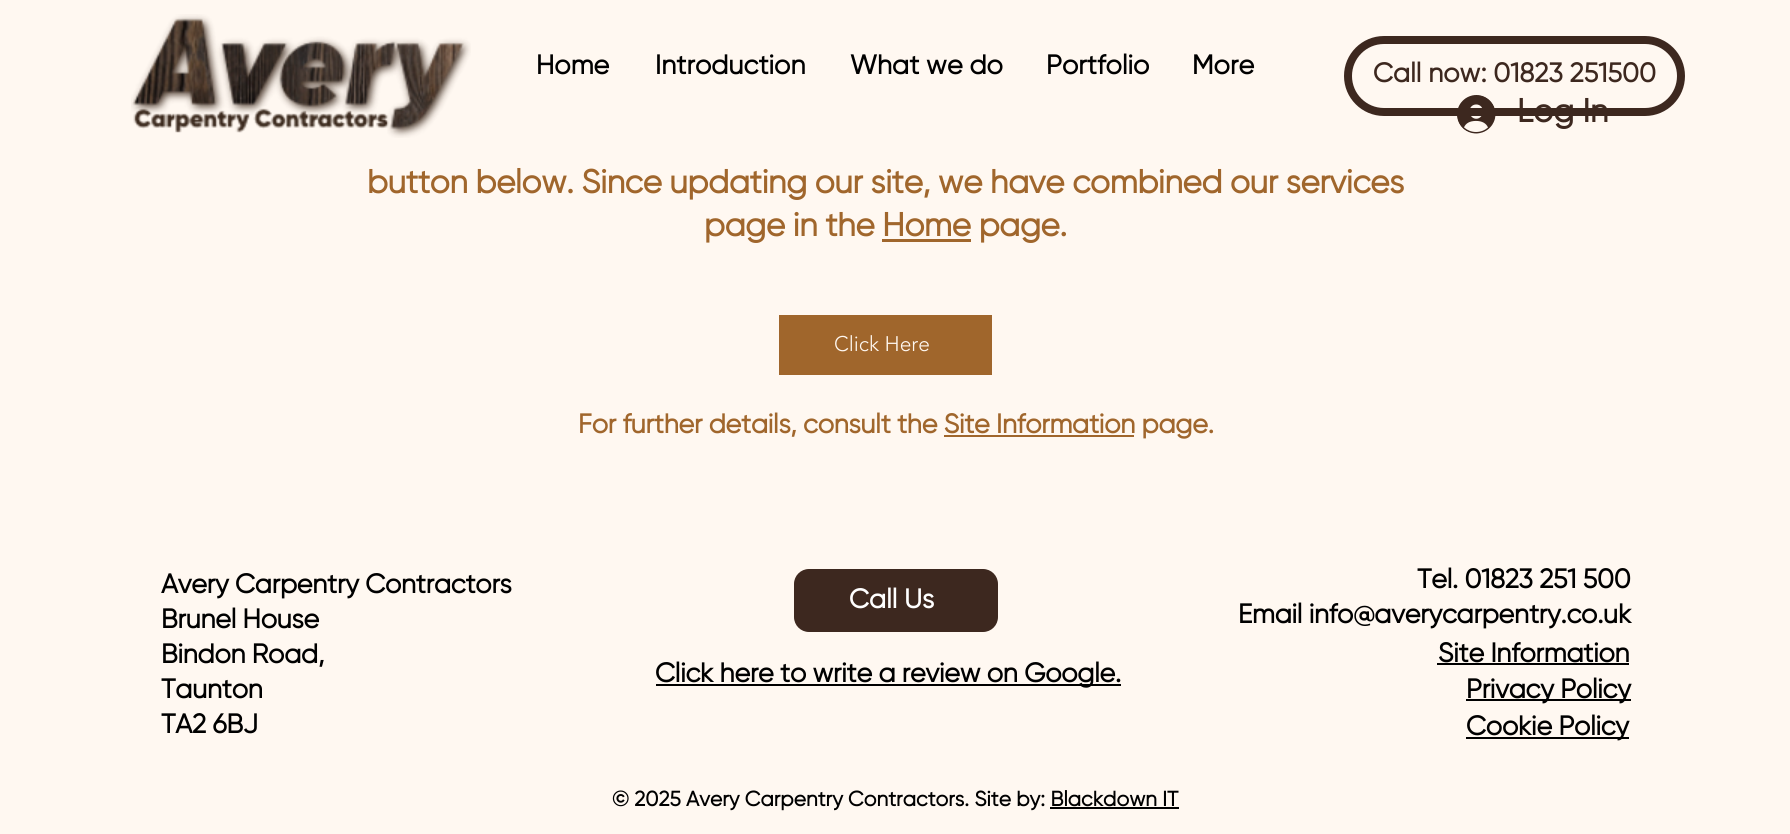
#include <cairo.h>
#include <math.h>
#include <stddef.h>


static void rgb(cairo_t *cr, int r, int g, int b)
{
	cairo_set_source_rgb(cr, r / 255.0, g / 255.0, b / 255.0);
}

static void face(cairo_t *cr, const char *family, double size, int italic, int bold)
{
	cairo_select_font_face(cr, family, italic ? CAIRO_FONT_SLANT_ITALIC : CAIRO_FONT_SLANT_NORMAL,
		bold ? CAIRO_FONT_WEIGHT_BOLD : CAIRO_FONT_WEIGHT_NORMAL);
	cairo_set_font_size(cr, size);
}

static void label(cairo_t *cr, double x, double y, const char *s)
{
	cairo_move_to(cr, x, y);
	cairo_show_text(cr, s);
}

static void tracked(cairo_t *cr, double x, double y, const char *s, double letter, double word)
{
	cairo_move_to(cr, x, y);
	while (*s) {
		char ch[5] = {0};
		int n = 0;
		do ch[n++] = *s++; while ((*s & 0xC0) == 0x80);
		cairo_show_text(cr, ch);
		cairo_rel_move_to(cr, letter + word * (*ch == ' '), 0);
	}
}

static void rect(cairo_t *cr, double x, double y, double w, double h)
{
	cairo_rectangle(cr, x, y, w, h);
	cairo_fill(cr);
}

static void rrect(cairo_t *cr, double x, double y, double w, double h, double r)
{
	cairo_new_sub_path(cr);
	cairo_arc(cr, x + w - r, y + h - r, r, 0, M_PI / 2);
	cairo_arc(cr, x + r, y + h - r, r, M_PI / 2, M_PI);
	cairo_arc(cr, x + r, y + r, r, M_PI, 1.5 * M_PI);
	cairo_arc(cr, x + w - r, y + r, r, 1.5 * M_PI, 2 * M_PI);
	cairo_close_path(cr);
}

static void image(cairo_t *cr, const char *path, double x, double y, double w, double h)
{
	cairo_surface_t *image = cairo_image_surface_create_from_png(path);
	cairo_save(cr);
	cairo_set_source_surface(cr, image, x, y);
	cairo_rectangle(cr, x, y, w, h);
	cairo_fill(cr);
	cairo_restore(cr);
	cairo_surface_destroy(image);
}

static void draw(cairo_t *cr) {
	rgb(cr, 255, 248, 241);
	cairo_paint(cr);
	image(cr, "image0.png", 131, 14, 340, 124);
	face(cr, "Gilroy", 27, 0, 1);
	rgb(cr, 0, 0, 0);
	label(cr, 536, 74, "Home");
	label(cr, 655, 74, "Introduction");
	label(cr, 850, 74, "What we do");
	label(cr, 1046, 74, "Portfolio");
	label(cr, 1192, 74, "More");
	rrect(cr, 1348, 40, 333, 72, 36);
	rgb(cr, 61, 40, 31);
	cairo_set_line_width(cr, 8);
	cairo_stroke(cr);
	label(cr, 1373, 82, "Call now: 01823 251500");
	image(cr, "image1.png", 1457, 95, 39, 39);
	face(cr, "Gilroy", 33, 0, 1);
	label(cr, 1517, 122, "Log In");
	rgb(cr, 160, 102, 44);
	tracked(cr, 367, 193, "button below. Since updating our site, we have combined our services", -0.33, 0);
	tracked(cr, 704, 236, "page in the Home page.", -0.33, 0);
	rect(cr, 882, 239, 89, 3);
	rect(cr, 779, 315, 213, 60);
	face(cr, "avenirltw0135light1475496 Light", 21, 0, 0);
	rgb(cr, 255, 248, 241);
	label(cr, 834, 351, "Click Here");
	face(cr, "Gilroy", 27, 0, 1);
	rgb(cr, 160, 102, 44);
	tracked(cr, 578, 433, "For further details, consult the Site Information page.", -0.27, 0);
	rect(cr, 944, 435, 190, 2);
	rgb(cr, 0, 0, 0);
	tracked(cr, 161, 593, "Avery Carpentry Contractors", -0.27, 0);
	tracked(cr, 161, 628, "Brunel House", -0.27, 0);
	tracked(cr, 161, 663, "Bindon Road,", -0.27, 0);
	tracked(cr, 161, 698, "Taunton", -0.27, 0);
	tracked(cr, 161, 733, "TA2 6BJ", -0.27, 0);
	rgb(cr, 61, 40, 31);
	rrect(cr, 794, 569, 204, 63, 15);
	cairo_fill(cr);
	rgb(cr, 255, 255, 255);
	label(cr, 849, 608, "Call Us");
	rgb(cr, 0, 0, 0);
	tracked(cr, 1417, 588, "Tel. 01823 251 500", -0.27, 0);
	tracked(cr, 1238, 623, "Email info@averycarpentry.co.uk", -0.27, 0);
	tracked(cr, 1438, 662, "Site Information", -0.27, 0);
	rect(cr, 1437, 663, 192, 2);
	rect(cr, 656, 684, 465, 2);
	tracked(cr, 655, 682, "Click here to write a review on Google.", -0.27, 0);
	rect(cr, 1466, 737, 163, 2);
	tracked(cr, 1466, 735, "Cookie Policy", -0.27, 0);
	face(cr, "Gilroy", 21, 0, 1);
	label(cr, 612, 806, "© 2025 Avery Carpentry Contractors. Site by: Blackdown IT");
	rect(cr, 1050, 807, 129, 2);
	rect(cr, 1466, 699, 165, 2);
	face(cr, "Gilroy", 27, 0, 1);
	tracked(cr, 1466, 698, "Privacy Policy", -0.27, 0);
}

int main(void) {
	cairo_surface_t *surface = cairo_image_surface_create(CAIRO_FORMAT_RGB24, 1790, 834);
	cairo_t *cr = cairo_create(surface);
	cairo_font_options_t *options = cairo_font_options_create();
	cairo_font_options_set_hint_metrics(options, CAIRO_HINT_METRICS_OFF);
	cairo_font_options_set_hint_style(options, CAIRO_HINT_STYLE_NONE);
	cairo_set_font_options(cr, options);
	cairo_set_miter_limit(cr, 4);
	draw(cr);
	cairo_surface_write_to_png(surface, "render.png");
	cairo_font_options_destroy(options);
	cairo_destroy(cr);
	cairo_surface_destroy(surface);
	return 0;
}
